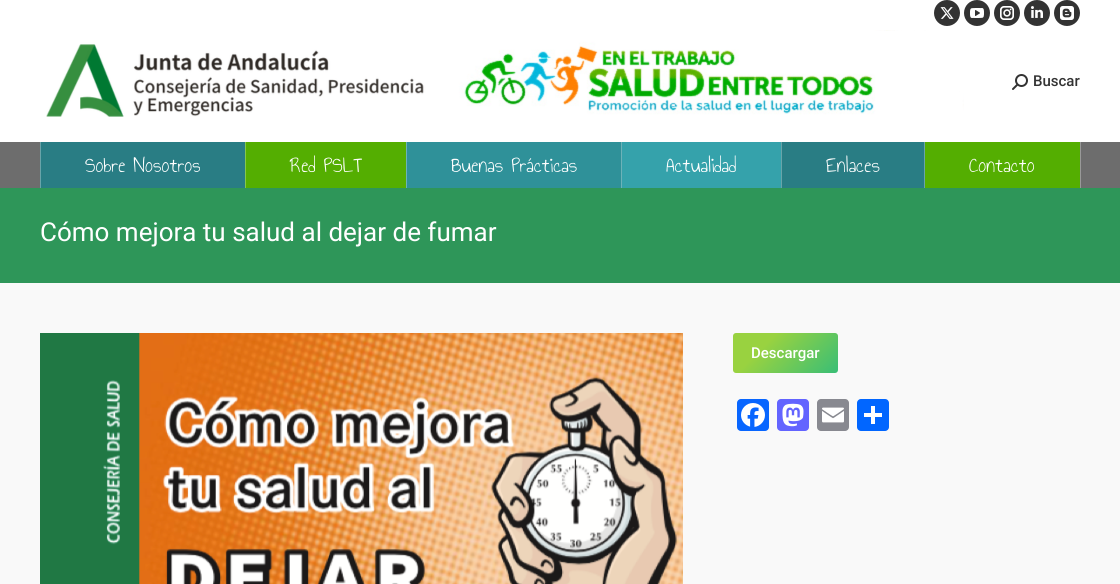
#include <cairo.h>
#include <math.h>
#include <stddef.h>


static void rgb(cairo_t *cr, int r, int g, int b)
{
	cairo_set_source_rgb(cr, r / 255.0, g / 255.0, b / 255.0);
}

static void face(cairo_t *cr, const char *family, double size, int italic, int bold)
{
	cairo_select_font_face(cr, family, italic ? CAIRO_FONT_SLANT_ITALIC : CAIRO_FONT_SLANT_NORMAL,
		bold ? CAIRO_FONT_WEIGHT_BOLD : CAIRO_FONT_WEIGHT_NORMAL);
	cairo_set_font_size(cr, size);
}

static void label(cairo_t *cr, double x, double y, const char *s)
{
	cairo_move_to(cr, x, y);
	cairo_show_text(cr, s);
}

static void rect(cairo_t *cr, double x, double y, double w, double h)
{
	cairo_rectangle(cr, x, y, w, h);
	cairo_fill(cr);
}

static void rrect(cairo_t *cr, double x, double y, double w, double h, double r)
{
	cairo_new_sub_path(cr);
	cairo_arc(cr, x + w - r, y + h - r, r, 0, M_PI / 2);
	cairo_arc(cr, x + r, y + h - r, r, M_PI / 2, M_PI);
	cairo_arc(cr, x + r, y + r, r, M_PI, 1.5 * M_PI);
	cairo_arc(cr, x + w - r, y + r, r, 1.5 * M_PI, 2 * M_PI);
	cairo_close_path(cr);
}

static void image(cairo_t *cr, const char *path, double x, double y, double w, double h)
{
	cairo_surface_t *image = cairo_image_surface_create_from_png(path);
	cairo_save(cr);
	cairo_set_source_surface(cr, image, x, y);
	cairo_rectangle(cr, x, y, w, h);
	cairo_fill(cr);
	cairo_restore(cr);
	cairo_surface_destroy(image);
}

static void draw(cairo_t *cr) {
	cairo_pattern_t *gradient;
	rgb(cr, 249, 249, 249);
	cairo_paint(cr);
	rgb(cr, 255, 255, 255);
	rect(cr, 0, 0, 1120, 142);
	rgb(cr, 51, 51, 51);
	cairo_arc(cr, 947, 13, 13, 0, 2 * M_PI);
	cairo_fill(cr);
	image(cr, "image0.png", 940, 7, 14, 12);
	cairo_arc(cr, 977, 13, 13, 0, 2 * M_PI);
	cairo_fill(cr);
	image(cr, "image1.png", 970, 8, 14, 10);
	cairo_arc(cr, 1007, 13, 13, 0, 2 * M_PI);
	cairo_fill(cr);
	image(cr, "image2.png", 1000, 6, 14, 14);
	cairo_arc(cr, 1037, 13, 13, 0, 2 * M_PI);
	cairo_fill(cr);
	image(cr, "image3.png", 1031, 6, 12, 12);
	cairo_arc(cr, 1067, 13, 13, 0, 2 * M_PI);
	cairo_fill(cr);
	image(cr, "image4.png", 1060, 6, 14, 14);
	image(cr, "image5.png", 46, 30, 918, 87);
	image(cr, "image6.png", 1012, 74, 16, 16);
	face(cr, "Roboto Medium", 15, 0, 0);
	label(cr, 1033, 86, "Buscar");
	rgb(cr, 109, 109, 109);
	rect(cr, 0, 142, 1120, 46);
	rgb(cr, 41, 125, 132);
	rect(cr, 41, 142, 204, 46);
	rgb(cr, 105, 164, 169);
	rect(cr, 40, 142, 1, 46);
	face(cr, "Annie Use Your Telescope", 22, 0, 0);
	rgb(cr, 255, 255, 255);
	label(cr, 85, 172, "Sobre Nosotros");
	rgb(cr, 84, 174, 1);
	rect(cr, 246, 142, 160, 46);
	rgb(cr, 135, 198, 77);
	rect(cr, 245, 142, 1, 46);
	rgb(cr, 255, 255, 255);
	label(cr, 290, 172, "Red PSLT");
	rgb(cr, 47, 145, 153);
	rect(cr, 407, 142, 214, 46);
	rgb(cr, 109, 178, 184);
	rect(cr, 406, 142, 1, 46);
	rgb(cr, 255, 255, 255);
	label(cr, 451, 172, "Buenas Prácticas");
	rgb(cr, 53, 162, 171);
	rect(cr, 622, 142, 159, 46);
	rgb(cr, 109, 178, 184);
	rect(cr, 621, 142, 1, 46);
	rgb(cr, 255, 255, 255);
	label(cr, 666, 172, "Actualidad");
	rgb(cr, 41, 125, 132);
	rect(cr, 782, 142, 142, 46);
	rgb(cr, 105, 164, 169);
	rect(cr, 781, 142, 1, 46);
	rgb(cr, 255, 255, 255);
	label(cr, 826, 172, "Enlaces");
	rgb(cr, 84, 174, 1);
	rect(cr, 925, 142, 155, 46);
	rgb(cr, 105, 164, 169);
	rect(cr, 924, 142, 1, 46);
	rgb(cr, 255, 255, 255);
	label(cr, 969, 172, "Contacto");
	rgb(cr, 153, 153, 153);
	rect(cr, 1080, 142, 1, 46);
	rgb(cr, 46, 150, 89);
	rect(cr, 0, 188, 1120, 95);
	face(cr, "Roboto", 26, 0, 0);
	rgb(cr, 255, 255, 255);
	label(cr, 40, 241, "Cómo mejora tu salud al dejar de fumar");
	image(cr, "image7.png", 40, 333, 643, 251);
	gradient = cairo_pattern_create_linear(749, 317, 822, 389);
	cairo_pattern_add_color_stop_rgba(gradient, 0.3, 0.6, 0.824, 0.251, 1);
	cairo_pattern_add_color_stop_rgba(gradient, 1, 0.224, 0.745, 0.463, 1);
	cairo_set_source(cr, gradient);
	cairo_pattern_destroy(gradient);
	rrect(cr, 733, 333, 105, 40, 3);
	cairo_fill(cr);
	face(cr, "Roboto Medium", 15, 0, 0);
	rgb(cr, 255, 255, 255);
	label(cr, 751, 358, "Descargar");
	rgb(cr, 8, 102, 255);
	rrect(cr, 737, 399, 32, 32, 4);
	cairo_fill(cr);
	image(cr, "image8.png", 741, 403, 24, 24);
	rgb(cr, 99, 100, 255);
	rrect(cr, 777, 399, 32, 32, 4);
	cairo_fill(cr);
	image(cr, "image9.png", 782, 403, 22, 24);
	rgb(cr, 136, 137, 144);
	rrect(cr, 817, 399, 32, 32, 4);
	cairo_fill(cr);
	image(cr, "image10.png", 822, 407, 22, 16);
	rgb(cr, 1, 102, 255);
	rrect(cr, 857, 399, 32, 32, 4);
	cairo_fill(cr);
	rgb(cr, 255, 255, 255);
	rect(cr, 871, 406, 4, 18);
	rect(cr, 864, 413, 18, 4);
}

int main(void) {
	cairo_surface_t *surface = cairo_image_surface_create(CAIRO_FORMAT_RGB24, 1120, 584);
	cairo_t *cr = cairo_create(surface);
	cairo_font_options_t *options = cairo_font_options_create();
	cairo_font_options_set_hint_metrics(options, CAIRO_HINT_METRICS_OFF);
	cairo_font_options_set_hint_style(options, CAIRO_HINT_STYLE_NONE);
	cairo_set_font_options(cr, options);
	cairo_set_miter_limit(cr, 4);
	draw(cr);
	cairo_surface_write_to_png(surface, "render.png");
	cairo_font_options_destroy(options);
	cairo_destroy(cr);
	cairo_surface_destroy(surface);
	return 0;
}
